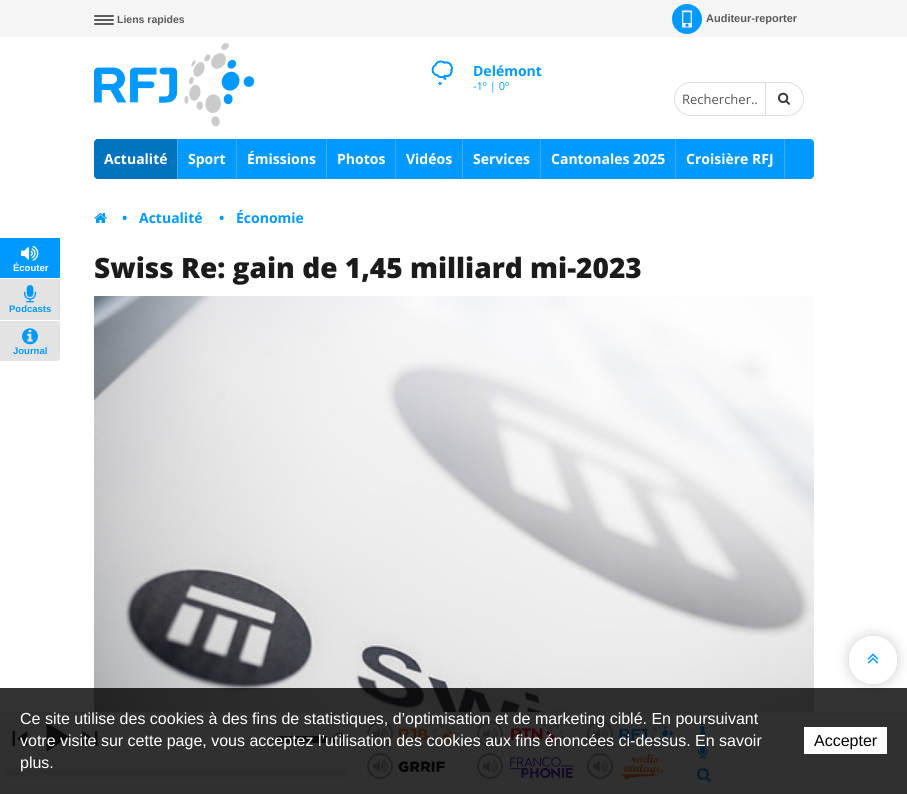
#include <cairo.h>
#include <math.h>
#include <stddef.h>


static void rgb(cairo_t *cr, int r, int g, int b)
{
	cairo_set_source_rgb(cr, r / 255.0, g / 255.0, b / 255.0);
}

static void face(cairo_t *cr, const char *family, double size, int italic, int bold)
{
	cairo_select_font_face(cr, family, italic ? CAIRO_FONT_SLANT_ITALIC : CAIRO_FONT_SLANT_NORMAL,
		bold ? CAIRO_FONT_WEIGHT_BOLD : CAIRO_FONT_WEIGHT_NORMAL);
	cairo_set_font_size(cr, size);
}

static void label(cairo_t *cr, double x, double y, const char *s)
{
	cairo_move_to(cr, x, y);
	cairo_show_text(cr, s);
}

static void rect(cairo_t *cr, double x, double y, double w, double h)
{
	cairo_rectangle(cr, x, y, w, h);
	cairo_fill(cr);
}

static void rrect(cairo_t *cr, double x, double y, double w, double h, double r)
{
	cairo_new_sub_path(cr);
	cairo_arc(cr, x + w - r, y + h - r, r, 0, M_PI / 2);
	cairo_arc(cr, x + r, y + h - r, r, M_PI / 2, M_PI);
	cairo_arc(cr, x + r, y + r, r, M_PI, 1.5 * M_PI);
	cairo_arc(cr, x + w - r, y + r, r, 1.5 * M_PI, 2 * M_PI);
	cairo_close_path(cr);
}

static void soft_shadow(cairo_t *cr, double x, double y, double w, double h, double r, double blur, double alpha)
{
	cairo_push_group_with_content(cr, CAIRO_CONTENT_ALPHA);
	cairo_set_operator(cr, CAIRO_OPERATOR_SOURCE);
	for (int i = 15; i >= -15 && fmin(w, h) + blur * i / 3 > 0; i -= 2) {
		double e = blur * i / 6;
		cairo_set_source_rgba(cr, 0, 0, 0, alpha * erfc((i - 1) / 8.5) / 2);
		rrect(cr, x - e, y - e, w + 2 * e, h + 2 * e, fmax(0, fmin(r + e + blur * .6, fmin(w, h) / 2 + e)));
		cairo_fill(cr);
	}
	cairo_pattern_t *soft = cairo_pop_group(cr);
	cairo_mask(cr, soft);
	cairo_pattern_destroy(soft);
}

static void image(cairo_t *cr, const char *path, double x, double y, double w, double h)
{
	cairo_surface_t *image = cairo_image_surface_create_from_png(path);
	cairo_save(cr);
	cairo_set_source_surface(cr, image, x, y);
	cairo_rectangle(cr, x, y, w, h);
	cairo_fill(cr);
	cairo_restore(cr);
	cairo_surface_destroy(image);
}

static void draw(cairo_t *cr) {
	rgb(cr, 255, 255, 255);
	cairo_paint(cr);
	rgb(cr, 245, 245, 245);
	rect(cr, 0, 0, 907, 37);
	rgb(cr, 91, 91, 91);
	rrect(cr, 94, 19, 20, 2, 1);
	cairo_fill(cr);
	rrect(cr, 94, 15, 20, 2, 1);
	cairo_fill(cr);
	rrect(cr, 94, 23, 20, 2, 1);
	cairo_fill(cr);
	face(cr, "Liberation Sans", 10.5, 0, 1);
	label(cr, 117, 23, "Liens rapides");
	image(cr, "image0.png", 672, 4, 30, 30);
	face(cr, "Liberation Sans", 11, 0, 1);
	label(cr, 706, 22, "Auditeur-reporter");
	image(cr, "image1.png", 94, 43, 160, 84);
	image(cr, "image2.png", 431, 60, 22, 25);
	face(cr, "Open Sans", 14, 0, 1);
	rgb(cr, 0, 153, 255);
	label(cr, 473, 76, "Delémont");
	face(cr, "Open Sans", 11, 0, 0);
	label(cr, 473, 90, "-1º | 0º");
	rrect(cr, 94, 139, 720, 40, 4);
	cairo_fill(cr);
	cairo_new_path(cr);
	cairo_move_to(cr, 691, 82.5);
	cairo_line_to(cr, 765.5, 82.5);
	cairo_line_to(cr, 765.5, 115.5);
	cairo_line_to(cr, 691, 115.5);
	cairo_curve_to(cr, 682, 115.5, 674.5, 108, 674.5, 99);
	cairo_curve_to(cr, 674.5, 90, 682, 82.5, 691, 82.5);
	cairo_close_path(cr);
	rgb(cr, 221, 221, 221);
	cairo_set_line_width(cr, 1);
	cairo_stroke(cr);
	face(cr, "Open Sans", 13, 0, 0);
	rgb(cr, 85, 85, 85);
	label(cr, 682, 104, "Rechercher..");
	rgb(cr, 255, 255, 255);
	cairo_new_path(cr);
	cairo_move_to(cr, 765.5, 82.5);
	cairo_line_to(cr, 787, 82.5);
	cairo_curve_to(cr, 796, 82.5, 803.5, 90, 803.5, 99);
	cairo_curve_to(cr, 803.5, 108, 796, 115.5, 787, 115.5);
	cairo_line_to(cr, 765.5, 115.5);
	cairo_close_path(cr);
	cairo_fill_preserve(cr);
	rgb(cr, 221, 221, 221);
	cairo_stroke(cr);
	image(cr, "image3.png", 778, 92, 12, 13);
	rgb(cr, 61, 172, 245);
	rect(cr, 177, 139, 1, 40);
	rgb(cr, 0, 115, 191);
	cairo_new_path(cr);
	cairo_move_to(cr, 98, 139);
	cairo_line_to(cr, 177, 139);
	cairo_line_to(cr, 177, 179);
	cairo_line_to(cr, 98, 179);
	cairo_curve_to(cr, 96, 179, 94, 177, 94, 175);
	cairo_line_to(cr, 94, 143);
	cairo_curve_to(cr, 94, 141, 96, 139, 98, 139);
	cairo_close_path(cr);
	cairo_fill(cr);
	face(cr, "Open Sans", 14, 0, 1);
	rgb(cr, 255, 255, 255);
	label(cr, 104, 164, "Actualité");
	rgb(cr, 61, 172, 245);
	rect(cr, 236, 139, 1, 40);
	rgb(cr, 255, 255, 255);
	label(cr, 188, 164, "Sport");
	rgb(cr, 61, 172, 245);
	rect(cr, 326, 139, 1, 40);
	rgb(cr, 255, 255, 255);
	label(cr, 247, 164, "Émissions");
	rgb(cr, 61, 172, 245);
	rect(cr, 395, 139, 1, 40);
	rgb(cr, 255, 255, 255);
	label(cr, 337, 164, "Photos");
	rgb(cr, 61, 172, 245);
	rect(cr, 462, 139, 1, 40);
	rgb(cr, 255, 255, 255);
	label(cr, 406, 164, "Vidéos");
	rgb(cr, 61, 172, 245);
	rect(cr, 540, 139, 1, 40);
	rgb(cr, 255, 255, 255);
	label(cr, 473, 164, "Services");
	rgb(cr, 61, 172, 245);
	rect(cr, 675, 139, 1, 40);
	rgb(cr, 255, 255, 255);
	label(cr, 551, 164, "Cantonales 2025");
	rgb(cr, 61, 172, 245);
	rect(cr, 784, 139, 1, 40);
	rgb(cr, 255, 255, 255);
	label(cr, 686, 164, "Croisière RFJ");
	image(cr, "image4.png", 94, 213, 13, 10);
	rgb(cr, 0, 153, 255);
	label(cr, 122, 223, "•");
	label(cr, 139, 223, "Actualité");
	label(cr, 219, 223, "•");
	label(cr, 236, 223, "Économie");
	face(cr, "Open Sans ExtraBold", 28, 0, 0);
	rgb(cr, 27, 27, 27);
	label(cr, 94, 278, "Swiss Re: gain de 1,45 milliard mi-2023");
	image(cr, "image5.png", 94, 296, 720, 416);
	rgb(cr, 0, 153, 255);
	rect(cr, 0, 238, 60, 40);
	image(cr, "image6.png", 21, 246, 18, 15);
	face(cr, "Liberation Sans", 9.5, 0, 1);
	rgb(cr, 255, 255, 255);
	label(cr, 13, 271, "Écouter");
	rgb(cr, 227, 227, 227);
	rect(cr, 0, 279, 60, 41);
	image(cr, "image7.png", 24, 285, 12, 18);
	rgb(cr, 0, 153, 255);
	label(cr, 9, 312, "Podcasts");
	rgb(cr, 227, 227, 227);
	cairo_new_path(cr);
	cairo_move_to(cr, 0, 321);
	cairo_line_to(cr, 60, 321);
	cairo_line_to(cr, 60, 358);
	cairo_curve_to(cr, 60, 359.5, 58.5, 361, 57, 361);
	cairo_line_to(cr, 0, 361);
	cairo_close_path(cr);
	cairo_fill(cr);
	image(cr, "image8.png", 22, 328, 16, 17);
	rgb(cr, 0, 153, 255);
	label(cr, 13, 354, "Journal");
	cairo_save(cr);
	cairo_set_fill_rule(cr, CAIRO_FILL_RULE_EVEN_ODD);
	cairo_new_path(cr);
	cairo_move_to(cr, 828, 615);
	cairo_line_to(cr, 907, 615);
	cairo_line_to(cr, 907, 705);
	cairo_line_to(cr, 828, 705);
	cairo_close_path(cr);
	cairo_move_to(cr, 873, 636);
	cairo_curve_to(cr, 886.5, 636, 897, 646.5, 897, 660);
	cairo_curve_to(cr, 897, 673.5, 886.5, 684, 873, 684);
	cairo_curve_to(cr, 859.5, 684, 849, 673.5, 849, 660);
	cairo_curve_to(cr, 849, 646.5, 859.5, 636, 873, 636);
	cairo_close_path(cr);
	cairo_clip(cr);
	rgb(cr, 0, 0, 0);
	soft_shadow(cr, 849, 636, 48, 48, 24, 6.5, 0.2);
	cairo_restore(cr);
	cairo_set_source_rgba(cr, 1, 1, 1, 0.6);
	cairo_arc(cr, 873, 660, 24, 0, 2 * M_PI);
	cairo_fill(cr);
	image(cr, "image9.png", 867, 653, 12, 11);
	rgb(cr, 240, 240, 240);
	rect(cr, 0, 713, 907, 80);
	rgb(cr, 224, 224, 224);
	rect(cr, 0, 712, 907, 1);
	rect(cr, 0, 793, 907, 1);
	image(cr, "image10.png", 12, 731, 16, 15);
	rgb(cr, 60, 60, 60);
	cairo_new_path(cr);
	cairo_move_to(cr, 46.5, 722.5);
	cairo_line_to(cr, 69.5, 737);
	cairo_line_to(cr, 46.5, 751.5);
	cairo_close_path(cr);
	cairo_fill(cr);
	image(cr, "image11.png", 82, 731, 16, 15);
	rect(cr, 277, 736, 50, 7);
	image(cr, "image12.png", 329, 732, 16, 15);
	cairo_rectangle(cr, 5.5, 770.5, 341, 6);
	rgb(cr, 227, 227, 227);
	cairo_stroke(cr);
	rect(cr, 6, 771, 340, 5);
	image(cr, "image13.png", 398, 723, 57, 21);
	cairo_arc(cr, 380, 734, 12, 0, 2 * M_PI);
	rgb(cr, 169, 169, 169);
	cairo_set_line_width(cr, 2);
	cairo_stroke(cr);
	image(cr, "image14.png", 373, 728, 15, 13);
	image(cr, "image15.png", 477, 721, 88, 24);
	rgb(cr, 240, 240, 240);
	cairo_arc(cr, 490, 734, 12, 0, 2 * M_PI);
	cairo_fill_preserve(cr);
	rgb(cr, 169, 169, 169);
	cairo_stroke(cr);
	image(cr, "image14.png", 483, 728, 15, 13);
	image(cr, "image16.png", 619, 720, 54, 29);
	cairo_arc(cr, 600, 734, 12, 0, 2 * M_PI);
	cairo_stroke(cr);
	image(cr, "image14.png", 593, 728, 15, 13);
	image(cr, "image17.png", 398, 761, 47, 12);
	cairo_arc(cr, 380, 766, 12, 0, 2 * M_PI);
	cairo_stroke(cr);
	image(cr, "image14.png", 373, 760, 15, 13);
	image(cr, "image18.png", 477, 757, 96, 22);
	rgb(cr, 240, 240, 240);
	cairo_arc(cr, 490, 766, 12, 0, 2 * M_PI);
	cairo_fill_preserve(cr);
	rgb(cr, 169, 169, 169);
	cairo_stroke(cr);
	image(cr, "image14.png", 483, 760, 15, 13);
	image(cr, "image19.png", 620, 754, 43, 26);
	cairo_arc(cr, 600, 766, 12, 0, 2 * M_PI);
	cairo_stroke(cr);
	image(cr, "image14.png", 593, 760, 15, 13);
	image(cr, "image20.png", 700, 722, 6, 12);
	image(cr, "image21.png", 698, 744, 10, 15);
	image(cr, "image22.png", 697, 768, 14, 15);
	cairo_set_source_rgba(cr, 0, 0, 0, 0.8);
	rect(cr, 0, 688, 907, 106);
	face(cr, "Liberation Sans", 16, 0, 0);
	rgb(cr, 255, 255, 255);
	label(cr, 20, 724, "Ce site utilise des cookies à des fins de statistiques, d’optimisation et de marketing ciblé. En poursuivant");
	label(cr, 20, 746, "votre visite sur cette page, vous acceptez l’utilisation des cookies aux fins énoncées ci-dessus. En savoir");
	label(cr, 20, 768, "plus.");
	rect(cr, 804, 727, 83, 27);
	rgb(cr, 0, 0, 0);
	label(cr, 814, 746, "Accepter");
}

int main(void) {
	cairo_surface_t *surface = cairo_image_surface_create(CAIRO_FORMAT_RGB24, 907, 794);
	cairo_t *cr = cairo_create(surface);
	cairo_font_options_t *options = cairo_font_options_create();
	cairo_font_options_set_hint_metrics(options, CAIRO_HINT_METRICS_OFF);
	cairo_font_options_set_hint_style(options, CAIRO_HINT_STYLE_NONE);
	cairo_set_font_options(cr, options);
	cairo_set_miter_limit(cr, 4);
	draw(cr);
	cairo_surface_write_to_png(surface, "render.png");
	cairo_font_options_destroy(options);
	cairo_destroy(cr);
	cairo_surface_destroy(surface);
	return 0;
}
